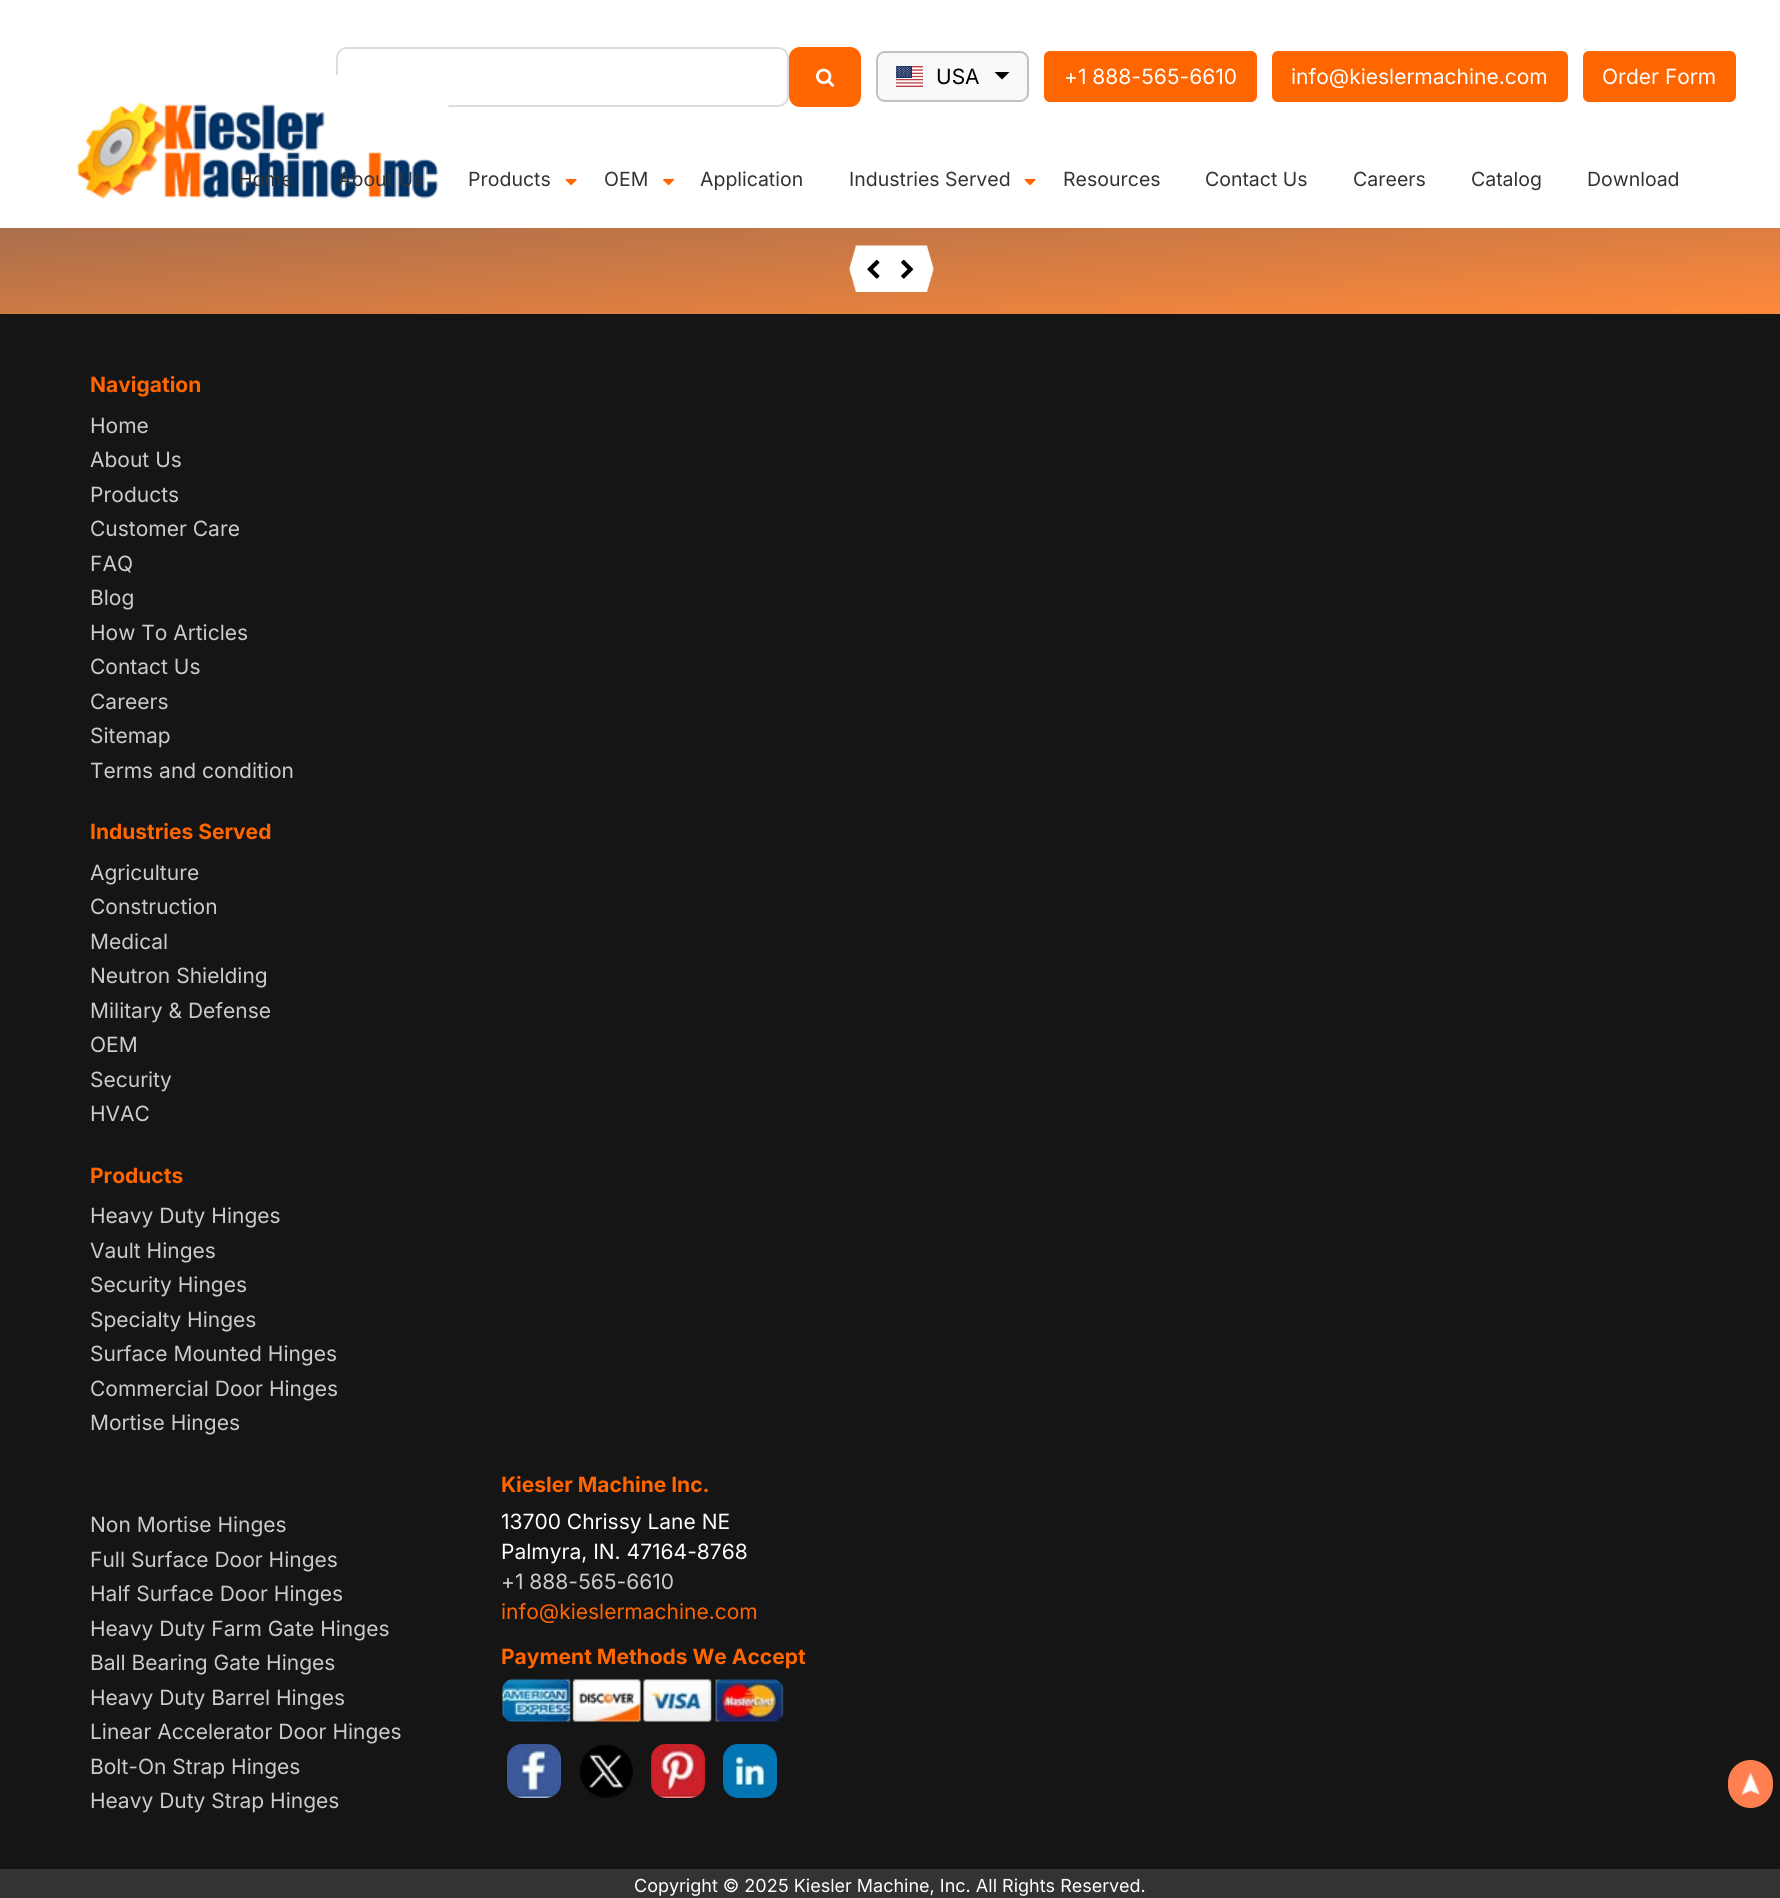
#include <cairo.h>
#include <math.h>
#include <stddef.h>


static void rgb(cairo_t *cr, int r, int g, int b)
{
	cairo_set_source_rgb(cr, r / 255.0, g / 255.0, b / 255.0);
}

static void face(cairo_t *cr, const char *family, double size, int italic, int bold)
{
	cairo_select_font_face(cr, family, italic ? CAIRO_FONT_SLANT_ITALIC : CAIRO_FONT_SLANT_NORMAL,
		bold ? CAIRO_FONT_WEIGHT_BOLD : CAIRO_FONT_WEIGHT_NORMAL);
	cairo_set_font_size(cr, size);
}

static void label(cairo_t *cr, double x, double y, const char *s)
{
	cairo_move_to(cr, x, y);
	cairo_show_text(cr, s);
}

static void rect(cairo_t *cr, double x, double y, double w, double h)
{
	cairo_rectangle(cr, x, y, w, h);
	cairo_fill(cr);
}

static void rrect(cairo_t *cr, double x, double y, double w, double h, double r)
{
	cairo_new_sub_path(cr);
	cairo_arc(cr, x + w - r, y + h - r, r, 0, M_PI / 2);
	cairo_arc(cr, x + r, y + h - r, r, M_PI / 2, M_PI);
	cairo_arc(cr, x + r, y + r, r, M_PI, 1.5 * M_PI);
	cairo_arc(cr, x + w - r, y + r, r, 1.5 * M_PI, 2 * M_PI);
	cairo_close_path(cr);
}

static void image(cairo_t *cr, const char *path, double x, double y, double w, double h)
{
	cairo_surface_t *image = cairo_image_surface_create_from_png(path);
	cairo_save(cr);
	cairo_set_source_surface(cr, image, x, y);
	cairo_rectangle(cr, x, y, w, h);
	cairo_fill(cr);
	cairo_restore(cr);
	cairo_surface_destroy(image);
}

static void draw(cairo_t *cr) {
	cairo_pattern_t *gradient;
	rgb(cr, 255, 255, 255);
	cairo_paint(cr);
	rrect(cr, 337, 48, 451, 58, 10);
	rgb(cr, 221, 221, 221);
	cairo_stroke(cr);
	rgb(cr, 255, 102, 0);
	rrect(cr, 789, 47, 72, 60, 11);
	cairo_fill(cr);
	image(cr, "image0.png", 816, 68, 19, 19);
	rgb(cr, 248, 249, 250);
	rrect(cr, 877, 52, 151, 49, 8);
	cairo_fill_preserve(cr);
	rgb(cr, 193, 193, 193);
	cairo_stroke(cr);
	image(cr, "image1.png", 896, 66, 27, 21);
	face(cr, "Inter", 21, 0, 0);
	rgb(cr, 0, 0, 0);
	label(cr, 936, 84, "USA");
	cairo_new_path(cr);
	cairo_move_to(cr, 994.5, 72);
	cairo_line_to(cr, 1009.5, 72);
	cairo_line_to(cr, 1002, 79.5);
	cairo_close_path(cr);
	cairo_fill(cr);
	rgb(cr, 255, 102, 0);
	rrect(cr, 1044, 51, 213, 51, 6);
	cairo_fill(cr);
	rgb(cr, 255, 255, 255);
	label(cr, 1064, 84, "+1 888-565-6610");
	rgb(cr, 255, 102, 0);
	rrect(cr, 1272, 51, 296, 51, 6);
	cairo_fill(cr);
	rgb(cr, 255, 255, 255);
	label(cr, 1291, 84, "info@kieslermachine.com");
	rgb(cr, 255, 102, 0);
	rrect(cr, 1583, 51, 153, 51, 6);
	cairo_fill(cr);
	rgb(cr, 255, 255, 255);
	label(cr, 1602, 84, "Order Form");
	image(cr, "image2.png", 77, 75, 372, 124);
	face(cr, "Inter", 19.5, 0, 0);
	rgb(cr, 51, 51, 51);
	label(cr, 238, 186, "Home");
	label(cr, 338, 186, "About Us");
	label(cr, 468, 186, "Products");
	image(cr, "image3.png", 565, 178, 12, 8);
	label(cr, 604, 186, "OEM");
	image(cr, "image4.png", 663, 178, 12, 8);
	label(cr, 700, 186, "Application");
	label(cr, 849, 186, "Industries Served");
	image(cr, "image3.png", 1024, 178, 12, 8);
	label(cr, 1063, 186, "Resources");
	label(cr, 1205, 186, "Contact Us");
	label(cr, 1353, 186, "Careers");
	label(cr, 1471, 186, "Catalog");
	label(cr, 1587, 186, "Download");
	gradient = cairo_pattern_create_linear(857, -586, 924, 373);
	cairo_pattern_add_color_stop_rgba(gradient, 0.36, 0.02, 0.235, 0.427, 1);
	cairo_pattern_add_color_stop_rgba(gradient, 1, 1, 0.537, 0.227, 1);
	cairo_set_source(cr, gradient);
	cairo_pattern_destroy(gradient);
	rect(cr, 0, 228, 1780, 86);
	image(cr, "image5.png", 849, 245, 85, 47);
	image(cr, "image6.png", 867, 259, 13, 20);
	image(cr, "image7.png", 901, 259, 13, 20);
	rgb(cr, 21, 21, 21);
	rect(cr, 0, 314, 1780, 1555);
	face(cr, "Inter", 21, 0, 1);
	rgb(cr, 255, 102, 0);
	label(cr, 90, 392, "Navigation");
	face(cr, "Inter", 21, 0, 0);
	rgb(cr, 204, 204, 204);
	label(cr, 90, 433, "Home");
	label(cr, 90, 467, "About Us");
	label(cr, 90, 502, "Products");
	label(cr, 90, 536, "Customer Care");
	label(cr, 90, 571, "FAQ");
	label(cr, 90, 605, "Blog");
	label(cr, 90, 640, "How To Articles");
	label(cr, 90, 674, "Contact Us");
	label(cr, 90, 709, "Careers");
	label(cr, 90, 743, "Sitemap");
	label(cr, 90, 778, "Terms and condition");
	face(cr, "Inter", 21, 0, 1);
	rgb(cr, 255, 102, 0);
	label(cr, 90, 839, "Industries Served");
	face(cr, "Inter", 21, 0, 0);
	rgb(cr, 204, 204, 204);
	label(cr, 90, 880, "Agriculture");
	label(cr, 90, 914, "Construction");
	label(cr, 90, 949, "Medical");
	label(cr, 90, 983, "Neutron Shielding");
	label(cr, 90, 1018, "Military & Defense");
	label(cr, 90, 1052, "OEM");
	label(cr, 90, 1087, "Security");
	label(cr, 90, 1121, "HVAC");
	face(cr, "Inter", 21, 0, 1);
	rgb(cr, 255, 102, 0);
	label(cr, 90, 1183, "Products");
	face(cr, "Inter", 21, 0, 0);
	rgb(cr, 204, 204, 204);
	label(cr, 90, 1223, "Heavy Duty Hinges");
	label(cr, 90, 1258, "Vault Hinges");
	label(cr, 90, 1292, "Security Hinges");
	label(cr, 90, 1327, "Specialty Hinges");
	label(cr, 90, 1361, "Surface Mounted Hinges");
	label(cr, 90, 1396, "Commercial Door Hinges");
	label(cr, 90, 1430, "Mortise Hinges");
	label(cr, 90, 1532, "Non Mortise Hinges");
	label(cr, 90, 1567, "Full Surface Door Hinges");
	label(cr, 90, 1601, "Half Surface Door Hinges");
	label(cr, 90, 1636, "Heavy Duty Farm Gate Hinges");
	label(cr, 90, 1670, "Ball Bearing Gate Hinges");
	label(cr, 90, 1705, "Heavy Duty Barrel Hinges");
	label(cr, 90, 1739, "Linear Accelerator Door Hinges");
	label(cr, 90, 1774, "Bolt-On Strap Hinges");
	label(cr, 90, 1808, "Heavy Duty Strap Hinges");
	face(cr, "Inter", 21, 0, 1);
	rgb(cr, 255, 102, 0);
	label(cr, 501, 1492, "Kiesler Machine Inc.");
	face(cr, "Inter", 21, 0, 0);
	rgb(cr, 255, 255, 255);
	label(cr, 501, 1529, "13700 Chrissy Lane NE");
	label(cr, 501, 1559, "Palmyra, IN. 47164-8768");
	rgb(cr, 204, 204, 204);
	label(cr, 501, 1589, "+1 888-565-6610");
	rgb(cr, 255, 102, 0);
	label(cr, 501, 1619, "info@kieslermachine.com");
	face(cr, "Inter", 21, 0, 1);
	label(cr, 501, 1664, "Payment Methods We Accept");
	image(cr, "image8.png", 502, 1679, 282, 43);
	image(cr, "image9.png", 507, 1744, 54, 54);
	image(cr, "image10.png", 579, 1744, 54, 54);
	image(cr, "image11.png", 651, 1744, 54, 54);
	image(cr, "image12.png", 723, 1744, 54, 54);
	rgb(cr, 255, 127, 80);
	rrect(cr, 1728, 1760, 45, 48, 22.5);
	cairo_fill(cr);
	image(cr, "image13.png", 1741, 1772, 19, 23);
	rgb(cr, 51, 51, 51);
	rect(cr, 0, 1869, 1780, 29);
	face(cr, "Inter", 18, 0, 0);
	rgb(cr, 255, 255, 255);
	label(cr, 634, 1892, "Copyright © 2025 Kiesler Machine, Inc. All Rights Reserved.");
}

int main(void) {
	cairo_surface_t *surface = cairo_image_surface_create(CAIRO_FORMAT_RGB24, 1780, 1898);
	cairo_t *cr = cairo_create(surface);
	cairo_font_options_t *options = cairo_font_options_create();
	cairo_font_options_set_hint_metrics(options, CAIRO_HINT_METRICS_OFF);
	cairo_font_options_set_hint_style(options, CAIRO_HINT_STYLE_NONE);
	cairo_set_font_options(cr, options);
	cairo_set_miter_limit(cr, 4);
	draw(cr);
	cairo_surface_write_to_png(surface, "render.png");
	cairo_font_options_destroy(options);
	cairo_destroy(cr);
	cairo_surface_destroy(surface);
	return 0;
}
